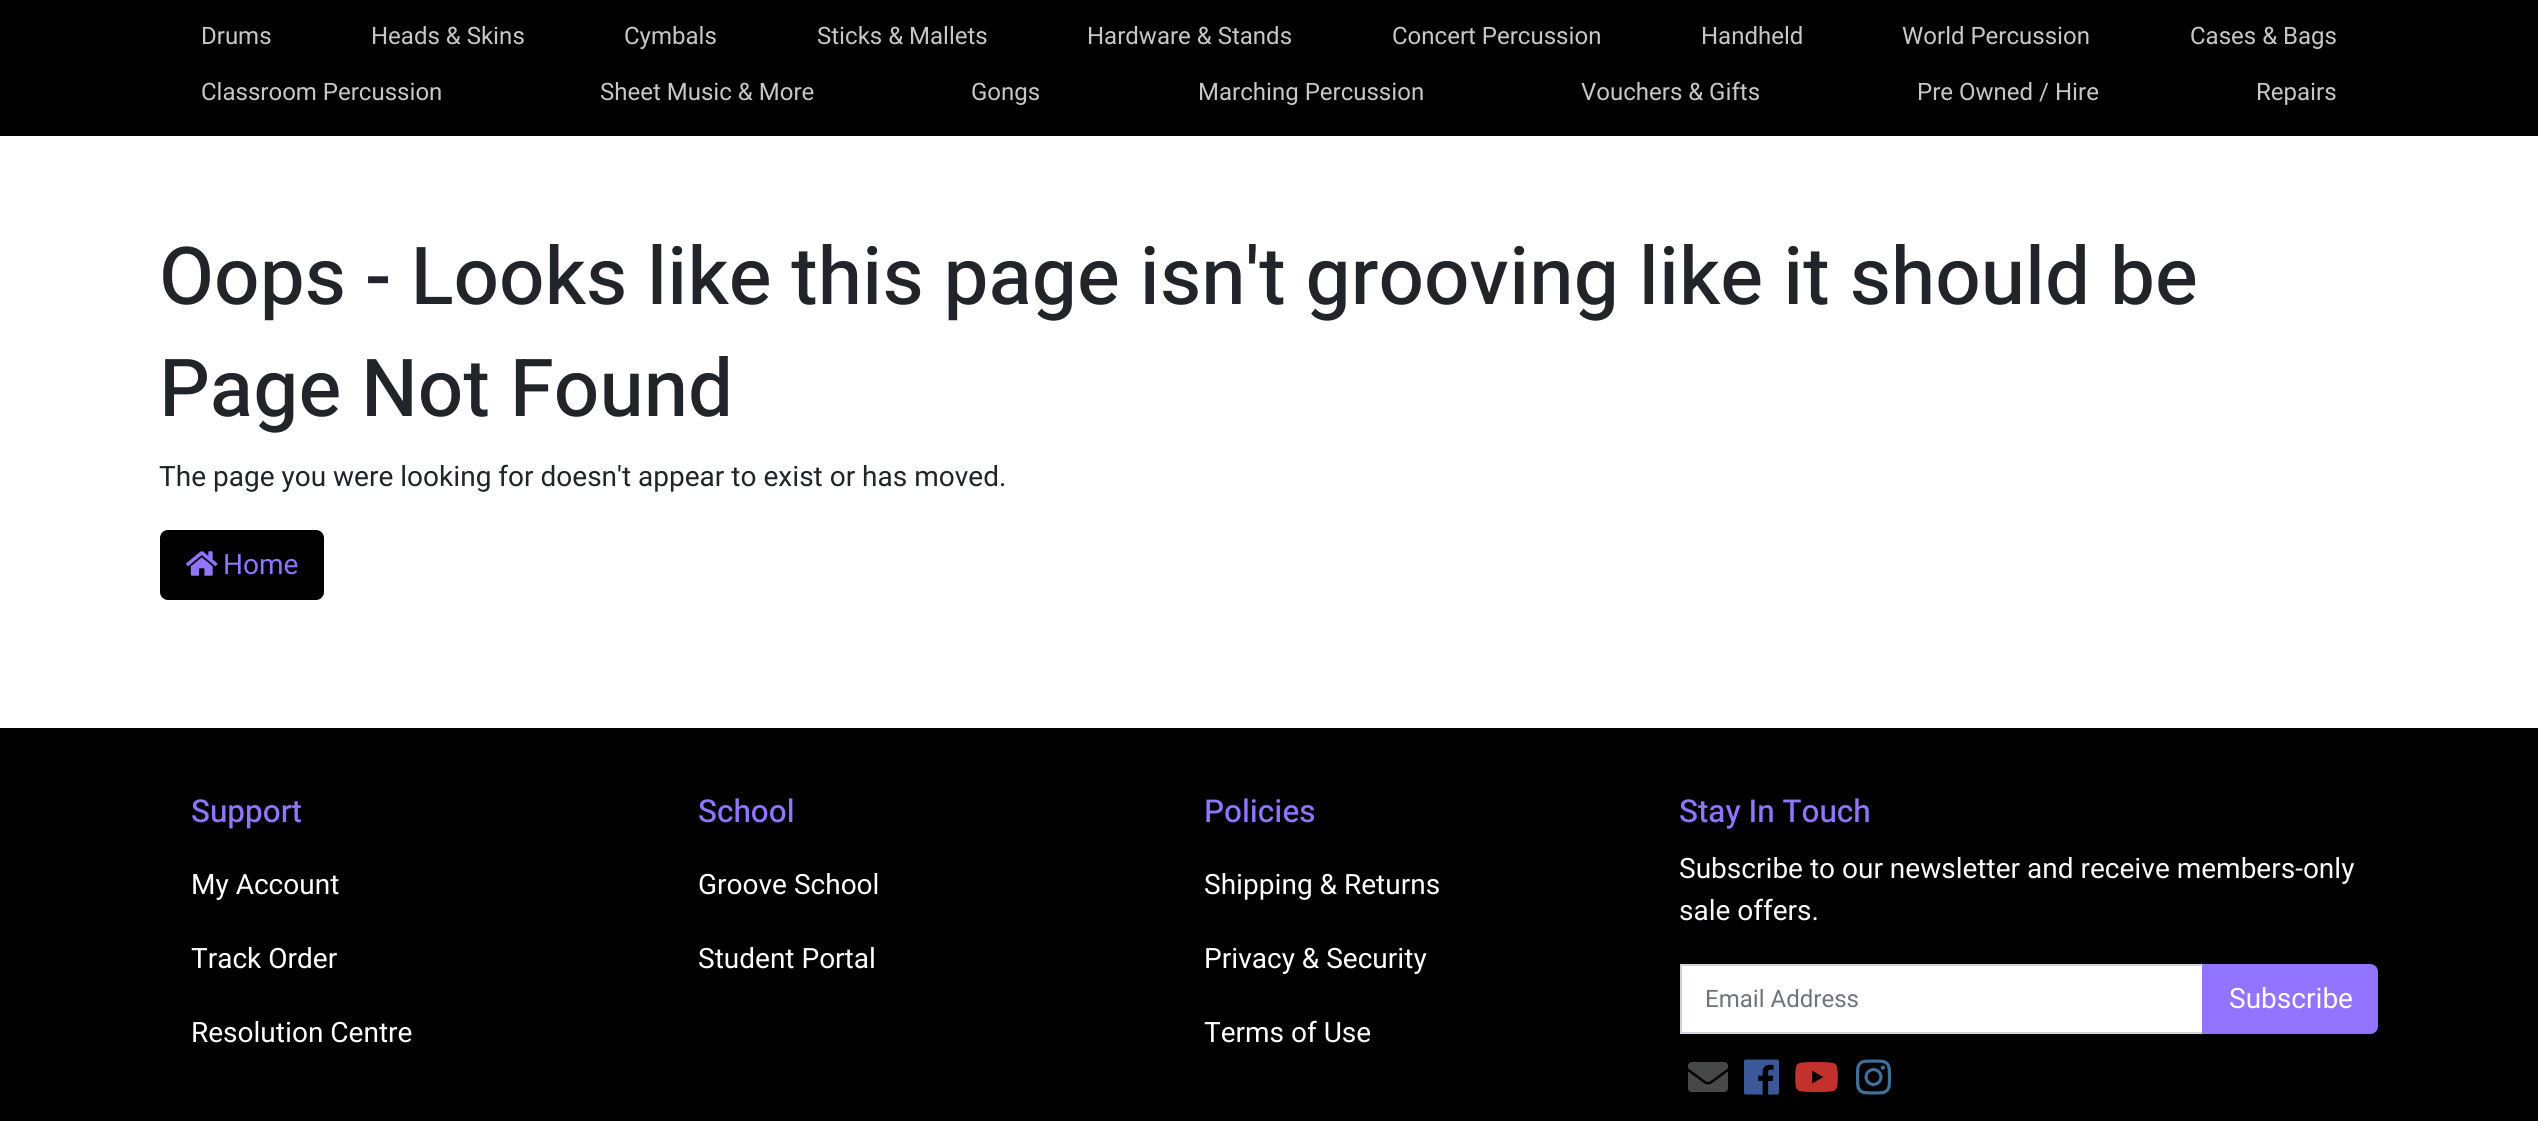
#include <cairo.h>
#include <math.h>
#include <stddef.h>


static void rgb(cairo_t *cr, int r, int g, int b)
{
	cairo_set_source_rgb(cr, r / 255.0, g / 255.0, b / 255.0);
}

static void face(cairo_t *cr, const char *family, double size, int italic, int bold)
{
	cairo_select_font_face(cr, family, italic ? CAIRO_FONT_SLANT_ITALIC : CAIRO_FONT_SLANT_NORMAL,
		bold ? CAIRO_FONT_WEIGHT_BOLD : CAIRO_FONT_WEIGHT_NORMAL);
	cairo_set_font_size(cr, size);
}

static void label(cairo_t *cr, double x, double y, const char *s)
{
	cairo_move_to(cr, x, y);
	cairo_show_text(cr, s);
}

static void rect(cairo_t *cr, double x, double y, double w, double h)
{
	cairo_rectangle(cr, x, y, w, h);
	cairo_fill(cr);
}

static void rrect(cairo_t *cr, double x, double y, double w, double h, double r)
{
	cairo_new_sub_path(cr);
	cairo_arc(cr, x + w - r, y + h - r, r, 0, M_PI / 2);
	cairo_arc(cr, x + r, y + h - r, r, M_PI / 2, M_PI);
	cairo_arc(cr, x + r, y + r, r, M_PI, 1.5 * M_PI);
	cairo_arc(cr, x + w - r, y + r, r, 1.5 * M_PI, 2 * M_PI);
	cairo_close_path(cr);
}

static void image(cairo_t *cr, const char *path, double x, double y, double w, double h)
{
	cairo_surface_t *image = cairo_image_surface_create_from_png(path);
	cairo_save(cr);
	cairo_set_source_surface(cr, image, x, y);
	cairo_rectangle(cr, x, y, w, h);
	cairo_fill(cr);
	cairo_restore(cr);
	cairo_surface_destroy(image);
}

static void draw(cairo_t *cr) {
	rgb(cr, 255, 255, 255);
	cairo_paint(cr);
	rgb(cr, 0, 0, 0);
	rect(cr, 0, 0, 2538, 136);
	face(cr, "Heebo", 24, 0, 0);
	rgb(cr, 199, 199, 201);
	label(cr, 201, 44, "Drums");
	label(cr, 371, 44, "Heads & Skins");
	label(cr, 624, 44, "Cymbals");
	label(cr, 817, 44, "Sticks & Mallets");
	label(cr, 1087, 44, "Hardware & Stands");
	label(cr, 1392, 44, "Concert Percussion");
	label(cr, 1701, 44, "Handheld");
	label(cr, 1902, 44, "World Percussion");
	label(cr, 2190, 44, "Cases & Bags");
	label(cr, 201, 100, "Classroom Percussion");
	label(cr, 600, 100, "Sheet Music & More");
	label(cr, 971, 100, "Gongs");
	label(cr, 1198, 100, "Marching Percussion");
	label(cr, 1581, 100, "Vouchers & Gifts");
	label(cr, 1917, 100, "Pre Owned / Hire");
	label(cr, 2256, 100, "Repairs");
	face(cr, "Heebo Medium", 80, 0, 0);
	rgb(cr, 33, 37, 41);
	label(cr, 159, 304, "Oops - Looks like this page isn't grooving like it should be");
	label(cr, 159, 416, "Page Not Found");
	face(cr, "Heebo", 28, 0, 0);
	label(cr, 159, 486, "The page you were looking for doesn't appear to exist or has moved.");
	rgb(cr, 0, 0, 0);
	rrect(cr, 161, 531, 162, 68, 7);
	cairo_fill_preserve(cr);
	cairo_stroke(cr);
	image(cr, "image0.png", 186, 551, 32, 25);
	rgb(cr, 145, 116, 255);
	label(cr, 223, 574, "Home");
	rgb(cr, 0, 0, 0);
	rect(cr, 0, 728, 2538, 393);
	face(cr, "Heebo Medium", 31.5, 0, 0);
	rgb(cr, 145, 116, 255);
	label(cr, 191, 822, "Support");
	face(cr, "Heebo", 28, 0, 0);
	rgb(cr, 255, 255, 255);
	label(cr, 191, 894, "My Account");
	label(cr, 191, 968, "Track Order");
	label(cr, 191, 1042, "Resolution Centre");
	face(cr, "Heebo Medium", 31.5, 0, 0);
	rgb(cr, 145, 116, 255);
	label(cr, 698, 822, "School");
	face(cr, "Heebo", 28, 0, 0);
	rgb(cr, 255, 255, 255);
	label(cr, 698, 894, "Groove School");
	label(cr, 698, 968, "Student Portal");
	face(cr, "Heebo Medium", 31.5, 0, 0);
	rgb(cr, 145, 116, 255);
	label(cr, 1204, 822, "Policies");
	face(cr, "Heebo", 28, 0, 0);
	rgb(cr, 255, 255, 255);
	label(cr, 1204, 894, "Shipping & Returns");
	label(cr, 1204, 968, "Privacy & Security");
	label(cr, 1204, 1042, "Terms of Use");
	face(cr, "Heebo Medium", 31.5, 0, 0);
	rgb(cr, 145, 116, 255);
	label(cr, 1679, 822, "Stay In Touch");
	face(cr, "Heebo", 28, 0, 0);
	rgb(cr, 248, 249, 250);
	label(cr, 1679, 878, "Subscribe to our newsletter and receive members-only");
	label(cr, 1679, 920, "sale offers.");
	rgb(cr, 255, 255, 255);
	cairo_rectangle(cr, 1681, 965, 522, 68);
	cairo_fill_preserve(cr);
	rgb(cr, 206, 212, 218);
	cairo_stroke(cr);
	face(cr, "Heebo", 24, 0, 0);
	rgb(cr, 108, 117, 125);
	label(cr, 1705, 1007, "Email Address");
	rgb(cr, 145, 116, 255);
	cairo_new_path(cr);
	cairo_move_to(cr, 2203, 965);
	cairo_line_to(cr, 2370, 965);
	cairo_curve_to(cr, 2374, 965, 2377, 968, 2377, 972);
	cairo_line_to(cr, 2377, 1026);
	cairo_curve_to(cr, 2377, 1030, 2374, 1033, 2370, 1033);
	cairo_line_to(cr, 2203, 1033);
	cairo_close_path(cr);
	cairo_fill_preserve(cr);
	cairo_stroke(cr);
	face(cr, "Heebo", 28, 0, 0);
	rgb(cr, 255, 255, 255);
	label(cr, 2229, 1008, "Subscribe");
	image(cr, "image1.png", 1688, 1062, 40, 30);
	image(cr, "image2.png", 1744, 1059, 35, 36);
	image(cr, "image3.png", 1795, 1062, 43, 30);
	image(cr, "image4.png", 1856, 1059, 35, 36);
}

int main(void) {
	cairo_surface_t *surface = cairo_image_surface_create(CAIRO_FORMAT_RGB24, 2538, 1121);
	cairo_t *cr = cairo_create(surface);
	cairo_font_options_t *options = cairo_font_options_create();
	cairo_font_options_set_hint_metrics(options, CAIRO_HINT_METRICS_OFF);
	cairo_font_options_set_hint_style(options, CAIRO_HINT_STYLE_NONE);
	cairo_set_font_options(cr, options);
	cairo_set_miter_limit(cr, 4);
	draw(cr);
	cairo_surface_write_to_png(surface, "render.png");
	cairo_font_options_destroy(options);
	cairo_destroy(cr);
	cairo_surface_destroy(surface);
	return 0;
}
